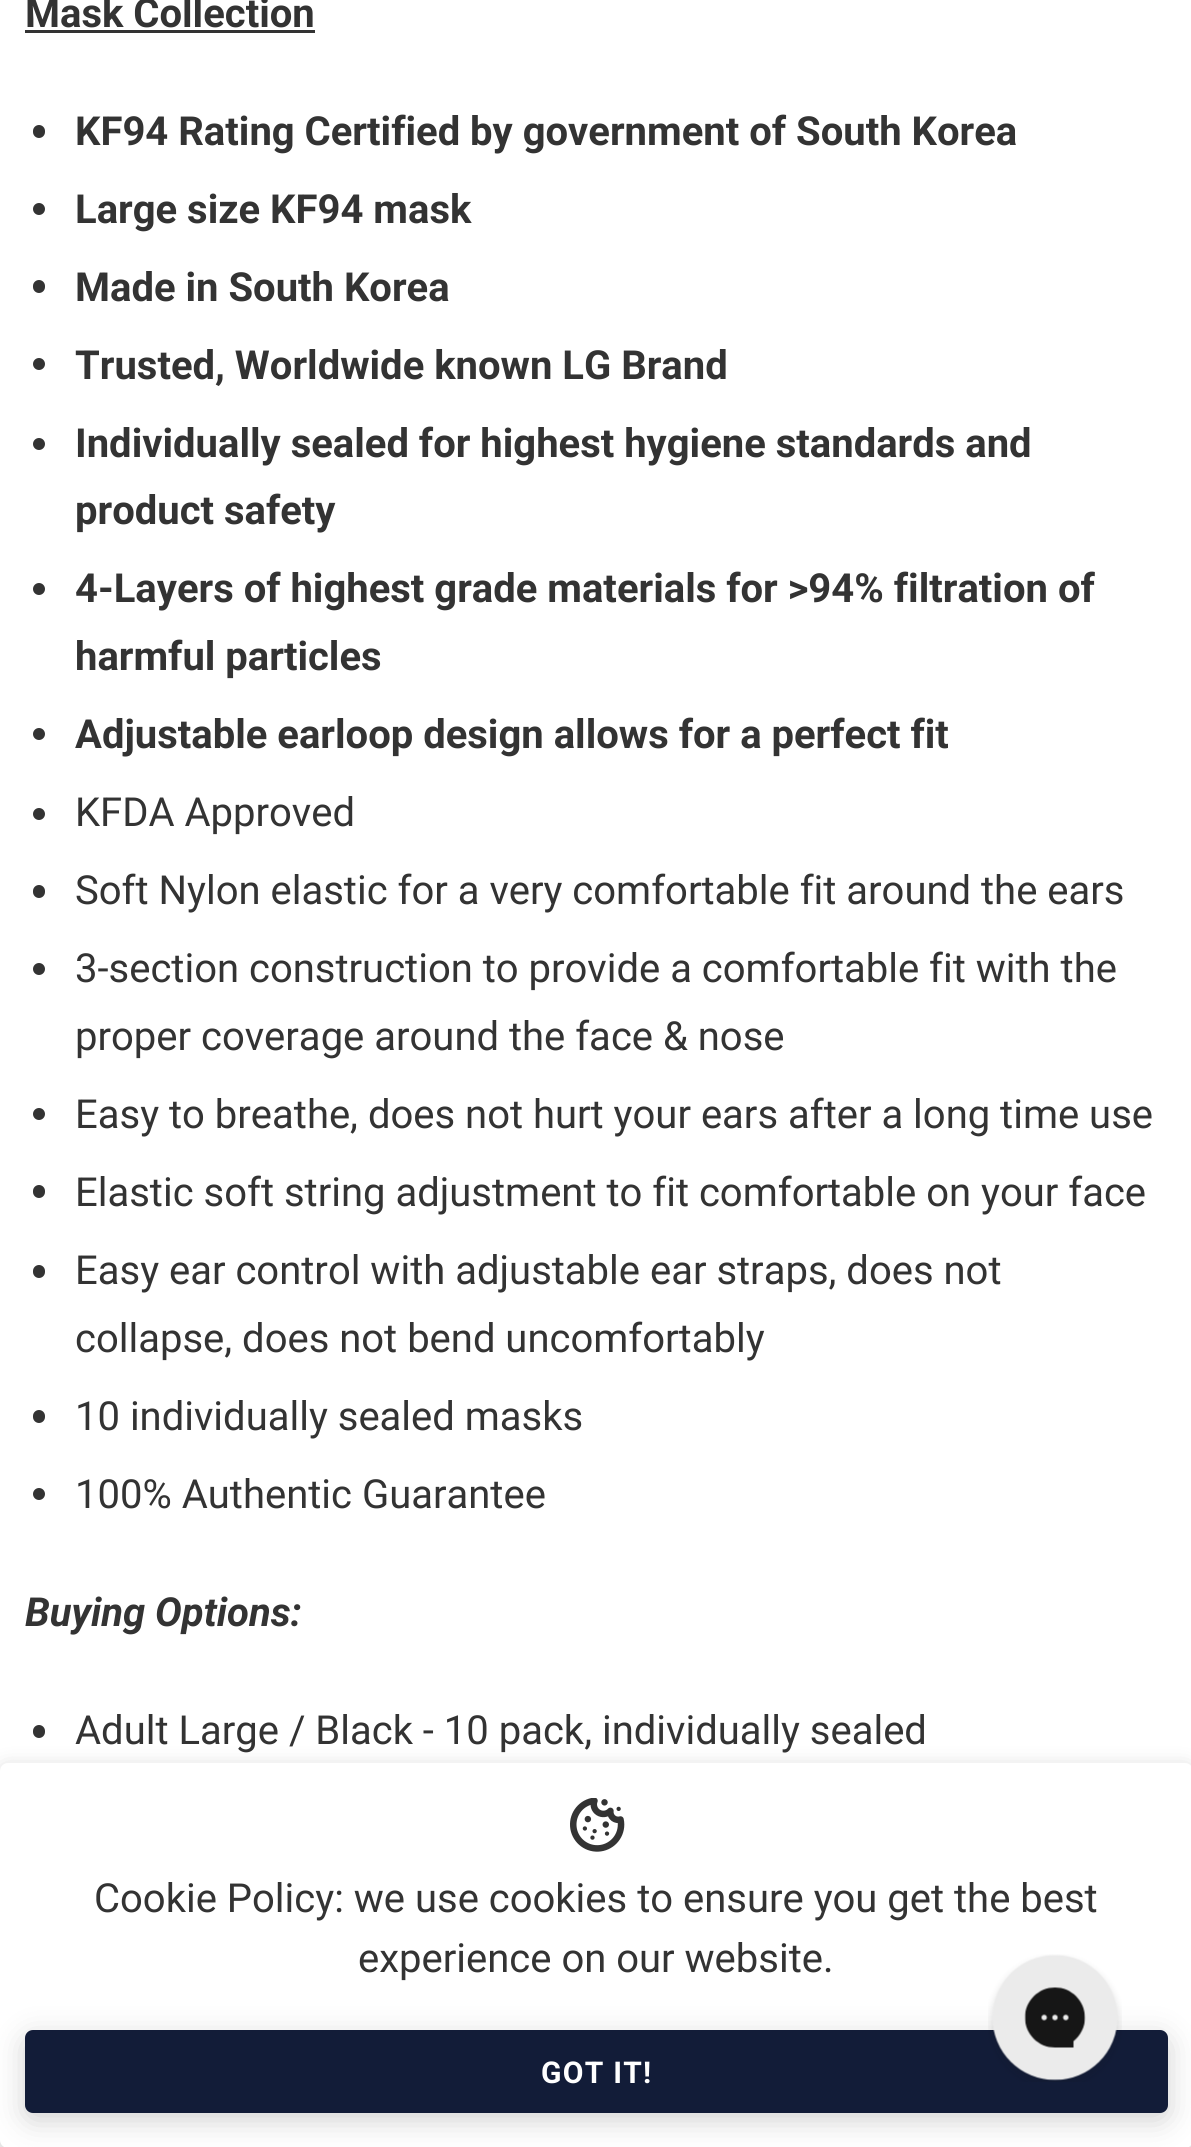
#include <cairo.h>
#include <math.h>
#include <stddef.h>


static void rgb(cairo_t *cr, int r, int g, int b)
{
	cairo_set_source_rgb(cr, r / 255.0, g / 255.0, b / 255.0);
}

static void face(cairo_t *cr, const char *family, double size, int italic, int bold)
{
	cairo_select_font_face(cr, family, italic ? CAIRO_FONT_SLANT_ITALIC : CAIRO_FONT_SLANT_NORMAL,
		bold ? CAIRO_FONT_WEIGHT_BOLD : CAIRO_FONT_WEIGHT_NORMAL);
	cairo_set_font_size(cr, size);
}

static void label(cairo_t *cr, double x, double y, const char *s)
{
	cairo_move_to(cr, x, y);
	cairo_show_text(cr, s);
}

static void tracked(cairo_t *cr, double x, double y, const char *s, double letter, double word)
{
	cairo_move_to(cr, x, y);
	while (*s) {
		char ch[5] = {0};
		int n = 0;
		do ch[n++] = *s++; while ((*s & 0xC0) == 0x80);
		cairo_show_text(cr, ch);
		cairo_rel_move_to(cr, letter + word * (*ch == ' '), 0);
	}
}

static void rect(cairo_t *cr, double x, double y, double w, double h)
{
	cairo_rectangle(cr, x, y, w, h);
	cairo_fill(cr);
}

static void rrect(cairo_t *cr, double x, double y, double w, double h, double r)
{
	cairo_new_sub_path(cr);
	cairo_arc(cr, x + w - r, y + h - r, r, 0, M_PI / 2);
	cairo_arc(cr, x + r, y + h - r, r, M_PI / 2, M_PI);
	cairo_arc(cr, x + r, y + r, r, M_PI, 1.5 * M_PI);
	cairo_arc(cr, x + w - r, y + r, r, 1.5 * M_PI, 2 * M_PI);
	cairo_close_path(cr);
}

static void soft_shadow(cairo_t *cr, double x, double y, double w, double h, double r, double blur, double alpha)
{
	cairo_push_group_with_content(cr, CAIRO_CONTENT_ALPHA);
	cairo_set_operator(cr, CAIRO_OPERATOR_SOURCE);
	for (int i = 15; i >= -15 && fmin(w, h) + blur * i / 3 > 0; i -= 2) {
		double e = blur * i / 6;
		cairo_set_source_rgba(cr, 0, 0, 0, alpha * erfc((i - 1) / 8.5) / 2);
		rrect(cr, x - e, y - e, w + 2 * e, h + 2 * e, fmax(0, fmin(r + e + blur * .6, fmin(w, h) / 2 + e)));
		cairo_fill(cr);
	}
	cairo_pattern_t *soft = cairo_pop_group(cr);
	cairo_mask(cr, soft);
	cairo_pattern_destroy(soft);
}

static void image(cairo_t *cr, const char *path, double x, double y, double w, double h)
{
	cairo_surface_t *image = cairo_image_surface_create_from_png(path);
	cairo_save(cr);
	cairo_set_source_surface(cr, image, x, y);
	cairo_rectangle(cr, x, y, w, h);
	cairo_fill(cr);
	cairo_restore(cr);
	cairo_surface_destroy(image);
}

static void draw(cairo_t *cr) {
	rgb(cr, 255, 255, 255);
	cairo_paint(cr);
	face(cr, "Roboto", 40, 0, 1);
	rgb(cr, 51, 51, 51);
	label(cr, 25, 27, "Mask Collection");
	rect(cr, 25, 30, 290, 3);
	rrect(cr, 33, 125, 12, 13, 6);
	cairo_fill(cr);
	label(cr, 75, 145, "KF94 Rating Certified by government of South Korea");
	cairo_new_path(cr);
	cairo_arc(cr, 39, 209, 6, 0, 2 * M_PI);
	cairo_fill(cr);
	label(cr, 75, 223, "Large size KF94 mask");
	rrect(cr, 33, 280, 12, 13, 6);
	cairo_fill(cr);
	label(cr, 75, 301, "Made in South Korea");
	cairo_new_path(cr);
	cairo_arc(cr, 39, 364, 6, 0, 2 * M_PI);
	cairo_fill(cr);
	label(cr, 75, 379, "Trusted, Worldwide known LG Brand");
	cairo_new_path(cr);
	cairo_arc(cr, 39, 444, 6, 0, 2 * M_PI);
	cairo_fill(cr);
	label(cr, 75, 457, "Individually sealed for highest hygiene standards and");
	label(cr, 75, 524, "product safety");
	cairo_new_path(cr);
	cairo_arc(cr, 39, 589, 6, 0, 2 * M_PI);
	cairo_fill(cr);
	label(cr, 75, 602, "4-Layers of highest grade materials for >94% filtration of");
	label(cr, 75, 670, "harmful particles");
	cairo_new_path(cr);
	cairo_arc(cr, 39, 734, 6, 0, 2 * M_PI);
	cairo_fill(cr);
	label(cr, 75, 748, "Adjustable earloop design allows for a perfect fit");
	cairo_new_path(cr);
	cairo_arc(cr, 39, 814, 6, 0, 2 * M_PI);
	cairo_fill(cr);
	face(cr, "Roboto", 40, 0, 0);
	label(cr, 75, 826, "KFDA Approved");
	rrect(cr, 33, 885, 12, 13, 6);
	cairo_fill(cr);
	label(cr, 75, 904, "Soft Nylon elastic for a very comfortable fit around the ears");
	cairo_new_path(cr);
	cairo_arc(cr, 39, 969, 6, 0, 2 * M_PI);
	cairo_fill(cr);
	label(cr, 75, 982, "3-section construction to provide a comfortable fit with the");
	label(cr, 75, 1050, "proper coverage around the face & nose");
	cairo_new_path(cr);
	cairo_arc(cr, 39, 1114, 6, 0, 2 * M_PI);
	cairo_fill(cr);
	label(cr, 75, 1128, "Easy to breathe, does not hurt your ears after a long time use");
	rrect(cr, 33, 1185, 12, 13, 6);
	cairo_fill(cr);
	label(cr, 75, 1206, "Elastic soft string adjustment to fit comfortable on your face");
	rrect(cr, 33, 1265, 12, 13, 6);
	cairo_fill(cr);
	label(cr, 75, 1284, "Easy ear control with adjustable ear straps, does not");
	label(cr, 75, 1352, "collapse, does not bend uncomfortably");
	rrect(cr, 33, 1410, 12, 13, 6);
	cairo_fill(cr);
	label(cr, 75, 1430, "10 individually sealed masks");
	cairo_new_path(cr);
	cairo_arc(cr, 39, 1494, 6, 0, 2 * M_PI);
	cairo_fill(cr);
	label(cr, 75, 1508, "100% Authentic Guarantee");
	face(cr, "Roboto", 40, 1, 1);
	label(cr, 25, 1626, "Buying Options:");
	rrect(cr, 33, 1725, 12, 13, 6);
	cairo_fill(cr);
	face(cr, "Roboto", 40, 0, 0);
	label(cr, 75, 1744, "Adult Large / Black - 10 pack, individually sealed");
	rgb(cr, 0, 0, 0);
	soft_shadow(cr, 0, 1768, 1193, 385, 8, 10, 0.2);
	rgb(cr, 255, 255, 255);
	rrect(cr, 0, 1763, 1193, 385, 8);
	cairo_fill(cr);
	image(cr, "image0.png", 570, 1798, 55, 54);
	rgb(cr, 51, 51, 51);
	label(cr, 94, 1912, "Cookie Policy: we use cookies to ensure you get the best");
	label(cr, 358, 1972, "experience on our website.");
	rgb(cr, 0, 0, 0);
	soft_shadow(cr, 25, 2038, 1143, 82, 8, 15, 0.18);
	rgb(cr, 18, 28, 56);
	rrect(cr, 25, 2030, 1143, 83, 8);
	cairo_fill(cr);
	face(cr, "Roboto", 30, 0, 1);
	rgb(cr, 255, 255, 255);
	tracked(cr, 541, 2083, "GOT IT!", 1.25, 0);
	image(cr, "image1.png", 988, 1954, 134, 128);
}

int main(void) {
	cairo_surface_t *surface = cairo_image_surface_create(CAIRO_FORMAT_RGB24, 1191, 2147);
	cairo_t *cr = cairo_create(surface);
	cairo_font_options_t *options = cairo_font_options_create();
	cairo_font_options_set_hint_metrics(options, CAIRO_HINT_METRICS_OFF);
	cairo_font_options_set_hint_style(options, CAIRO_HINT_STYLE_NONE);
	cairo_set_font_options(cr, options);
	cairo_set_miter_limit(cr, 4);
	draw(cr);
	cairo_surface_write_to_png(surface, "render.png");
	cairo_font_options_destroy(options);
	cairo_destroy(cr);
	cairo_surface_destroy(surface);
	return 0;
}
